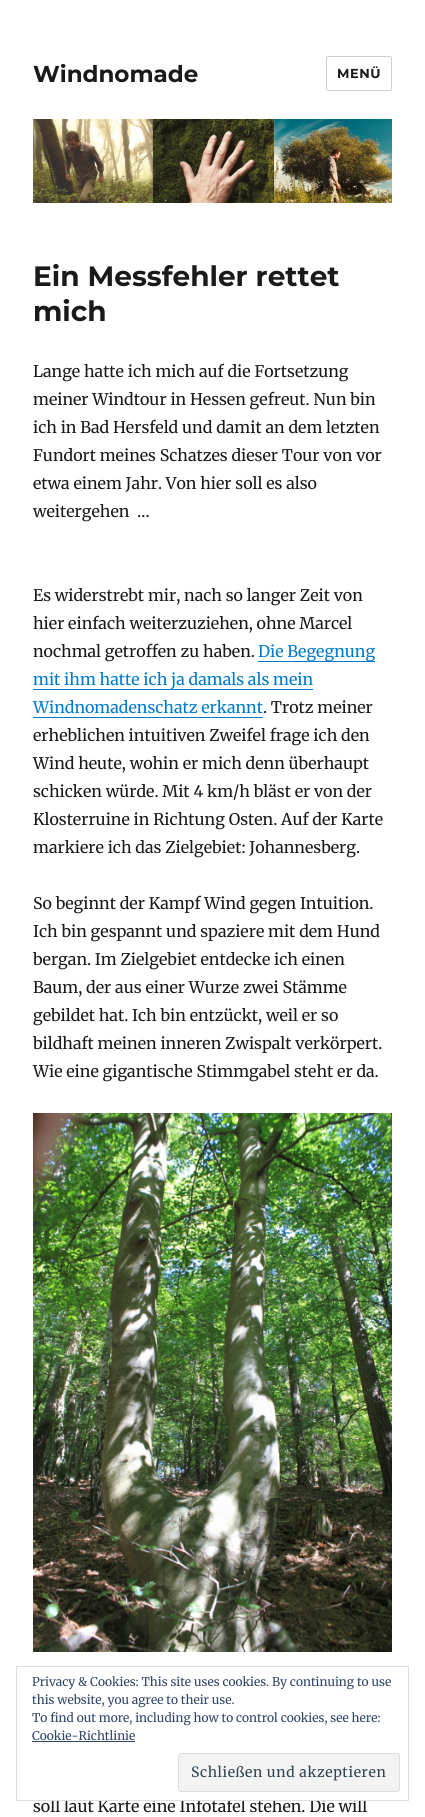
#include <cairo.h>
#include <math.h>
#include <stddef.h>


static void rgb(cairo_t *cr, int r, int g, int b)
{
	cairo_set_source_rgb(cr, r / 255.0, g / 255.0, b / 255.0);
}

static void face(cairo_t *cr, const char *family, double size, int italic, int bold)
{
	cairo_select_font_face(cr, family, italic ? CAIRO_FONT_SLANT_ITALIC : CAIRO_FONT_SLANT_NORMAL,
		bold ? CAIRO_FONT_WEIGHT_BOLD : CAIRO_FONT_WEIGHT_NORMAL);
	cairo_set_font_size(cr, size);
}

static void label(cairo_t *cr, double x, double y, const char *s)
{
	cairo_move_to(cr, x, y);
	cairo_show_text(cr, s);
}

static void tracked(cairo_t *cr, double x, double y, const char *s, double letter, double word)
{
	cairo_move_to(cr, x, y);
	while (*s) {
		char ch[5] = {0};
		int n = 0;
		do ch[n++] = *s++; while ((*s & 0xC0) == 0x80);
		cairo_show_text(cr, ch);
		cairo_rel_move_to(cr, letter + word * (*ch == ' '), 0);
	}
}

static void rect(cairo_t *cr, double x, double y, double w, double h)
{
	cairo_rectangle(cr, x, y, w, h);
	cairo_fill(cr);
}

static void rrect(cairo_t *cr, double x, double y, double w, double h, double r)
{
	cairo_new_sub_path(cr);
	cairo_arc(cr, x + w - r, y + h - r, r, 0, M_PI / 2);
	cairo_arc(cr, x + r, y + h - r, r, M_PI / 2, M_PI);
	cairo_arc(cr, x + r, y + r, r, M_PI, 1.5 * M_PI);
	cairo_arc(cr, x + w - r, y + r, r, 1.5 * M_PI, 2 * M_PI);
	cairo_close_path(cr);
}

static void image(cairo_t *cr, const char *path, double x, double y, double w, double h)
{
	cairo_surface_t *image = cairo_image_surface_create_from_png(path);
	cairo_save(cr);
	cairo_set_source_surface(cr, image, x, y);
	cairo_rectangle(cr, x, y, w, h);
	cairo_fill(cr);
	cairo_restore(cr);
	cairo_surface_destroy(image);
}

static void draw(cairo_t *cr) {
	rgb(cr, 255, 255, 255);
	cairo_paint(cr);
	face(cr, "Montserrat", 23, 0, 1);
	rgb(cr, 26, 26, 26);
	label(cr, 33, 82, "Windnomade");
	rrect(cr, 326.5, 56.5, 65, 34, 1.5);
	rgb(cr, 209, 209, 209);
	cairo_set_line_width(cr, 1);
	cairo_stroke(cr);
	face(cr, "Montserrat", 13, 0, 1);
	rgb(cr, 26, 26, 26);
	tracked(cr, 337, 78, "MENÜ", 0.5, 0);
	image(cr, "image0.png", 33, 119, 359, 84);
	face(cr, "Montserrat", 28, 0, 1);
	label(cr, 33, 286, "Ein Messfehler rettet");
	label(cr, 33, 321, "mich");
	face(cr, "Merriweather", 16, 0, 0);
	label(cr, 33, 377, "Lange hatte ich mich auf die Fortsetzung");
	label(cr, 33, 405, "meiner Windtour in Hessen gefreut. Nun bin");
	label(cr, 33, 433, "ich in Bad Hersfeld und damit an dem letzten");
	label(cr, 33, 461, "Fundort meines Schatzes dieser Tour von vor");
	label(cr, 33, 489, "etwa einem Jahr. Von hier soll es also");
	label(cr, 33, 517, "weitergehen  …");
	label(cr, 33, 601, "Es widerstrebt mir, nach so langer Zeit von");
	label(cr, 33, 629, "hier einfach weiterzuziehen, ohne Marcel");
	label(cr, 33, 657, "nochmal getroffen zu haben.");
	rgb(cr, 0, 122, 204);
	rect(cr, 258, 661, 117, 1);
	label(cr, 258, 657, "Die Begegnung");
	label(cr, 33, 685, "mit ihm hatte ich ja damals als mein");
	rect(cr, 33, 689, 280, 1);
	label(cr, 33, 713, "Windnomadenschatz erkannt");
	rect(cr, 33, 717, 230, 1);
	rgb(cr, 26, 26, 26);
	label(cr, 263, 713, ". Trotz meiner");
	label(cr, 33, 741, "erheblichen intuitiven Zweifel frage ich den");
	label(cr, 33, 769, "Wind heute, wohin er mich denn überhaupt");
	label(cr, 33, 797, "schicken würde. Mit 4 km/h bläst er von der");
	label(cr, 33, 825, "Klosterruine in Richtung Osten. Auf der Karte");
	label(cr, 33, 853, "markiere ich das Zielgebiet: Johannesberg.");
	label(cr, 33, 909, "So beginnt der Kampf Wind gegen Intuition.");
	label(cr, 33, 937, "Ich bin gespannt und spaziere mit dem Hund");
	label(cr, 33, 965, "bergan. Im Zielgebiet entdecke ich einen");
	label(cr, 33, 993, "Baum, der aus einer Wurze zwei Stämme");
	label(cr, 33, 1021, "gebildet hat. Ich bin entzückt, weil er so");
	label(cr, 33, 1049, "bildhaft meinen inneren Zwispalt verkörpert.");
	label(cr, 33, 1077, "Wie eine gigantische Stimmgabel steht er da.");
	image(cr, "image1.png", 33, 1113, 359, 539);
	label(cr, 33, 1812, "soll laut Karte eine Infotafel stehen. Die will");
	rgb(cr, 255, 255, 255);
	rect(cr, 50, 1798, 316, 2);
	cairo_rectangle(cr, 16.5, 1666.5, 392, 134);
	rgb(cr, 222, 222, 222);
	cairo_stroke(cr);
	face(cr, "Merriweather", 12, 0, 0);
	rgb(cr, 46, 68, 103);
	label(cr, 32, 1686, "Privacy & Cookies: This site uses cookies. By continuing to use");
	label(cr, 32, 1704, "this website, you agree to their use.");
	label(cr, 32, 1722, "To find out more, including how to control cookies, see here:");
	label(cr, 32, 1740, "Cookie-Richtlinie");
	rect(cr, 32, 1741, 103, 1);
	rgb(cr, 243, 243, 243);
	rrect(cr, 178.5, 1753.5, 221, 38, 2.5);
	cairo_fill_preserve(cr);
	rgb(cr, 222, 222, 222);
	cairo_stroke(cr);
	face(cr, "Merriweather", 14, 0, 0);
	rgb(cr, 46, 68, 83);
	tracked(cr, 191, 1777, "Schließen und akzeptieren", 0.65, 0);
}

int main(void) {
	cairo_surface_t *surface = cairo_image_surface_create(CAIRO_FORMAT_RGB24, 425, 1817);
	cairo_t *cr = cairo_create(surface);
	cairo_font_options_t *options = cairo_font_options_create();
	cairo_font_options_set_hint_metrics(options, CAIRO_HINT_METRICS_OFF);
	cairo_font_options_set_hint_style(options, CAIRO_HINT_STYLE_NONE);
	cairo_set_font_options(cr, options);
	cairo_set_miter_limit(cr, 4);
	draw(cr);
	cairo_surface_write_to_png(surface, "render.png");
	cairo_font_options_destroy(options);
	cairo_destroy(cr);
	cairo_surface_destroy(surface);
	return 0;
}
